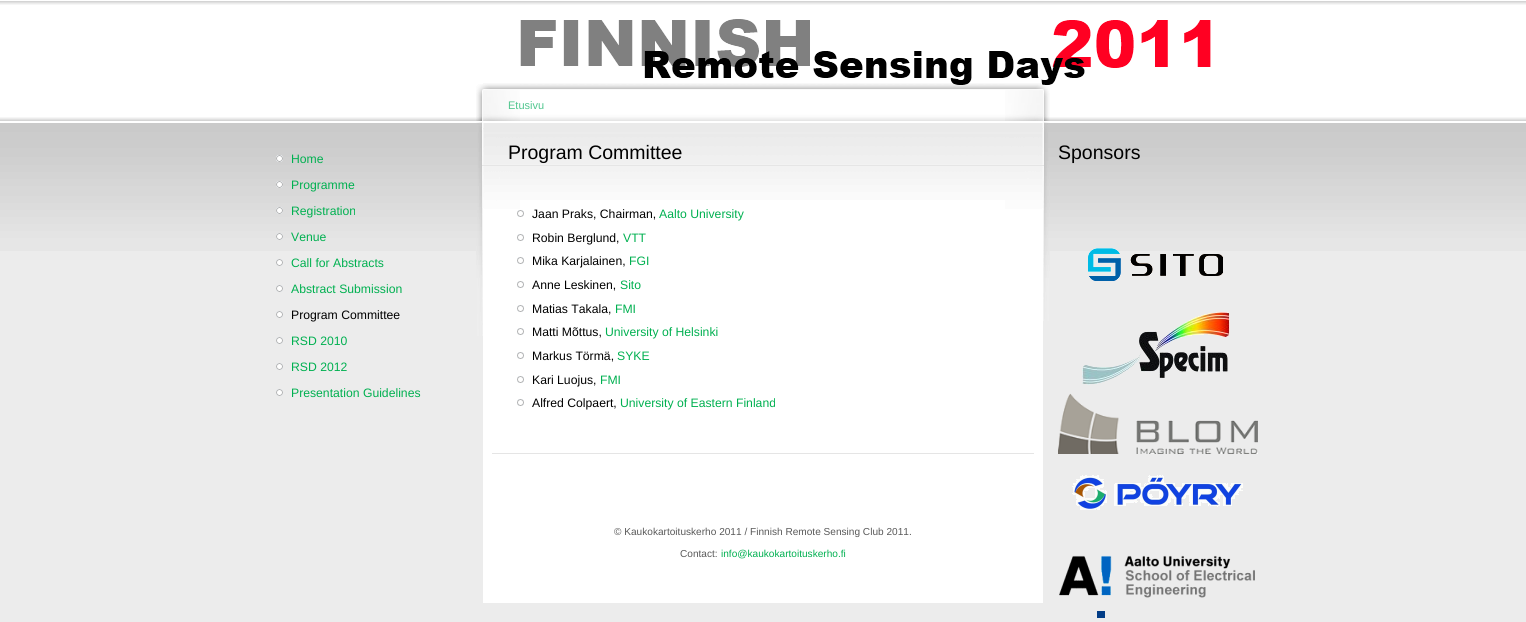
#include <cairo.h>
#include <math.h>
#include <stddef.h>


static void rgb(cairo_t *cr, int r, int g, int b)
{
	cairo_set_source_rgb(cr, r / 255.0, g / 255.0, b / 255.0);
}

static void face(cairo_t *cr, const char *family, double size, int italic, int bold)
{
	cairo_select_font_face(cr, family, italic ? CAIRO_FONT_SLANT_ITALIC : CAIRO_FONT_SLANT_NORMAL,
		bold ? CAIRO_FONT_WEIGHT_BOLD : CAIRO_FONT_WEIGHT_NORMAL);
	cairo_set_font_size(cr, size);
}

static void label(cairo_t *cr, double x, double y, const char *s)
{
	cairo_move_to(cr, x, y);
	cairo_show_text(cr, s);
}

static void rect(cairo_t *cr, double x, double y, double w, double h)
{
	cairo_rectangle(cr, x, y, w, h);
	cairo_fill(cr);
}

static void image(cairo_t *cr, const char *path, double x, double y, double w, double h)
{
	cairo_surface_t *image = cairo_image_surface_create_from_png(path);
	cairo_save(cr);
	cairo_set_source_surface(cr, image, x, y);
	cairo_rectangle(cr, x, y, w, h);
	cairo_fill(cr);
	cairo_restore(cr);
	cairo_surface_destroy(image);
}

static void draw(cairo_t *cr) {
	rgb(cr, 236, 236, 236);
	cairo_paint(cr);
	image(cr, "image0.png", 0, 0, 1526, 251);
	rgb(cr, 255, 255, 255);
	rect(cr, 483, 117, 560, 486);
	image(cr, "image7.png", 483, 83, 559, 117);
	image(cr, "image8.png", 1005, 84, 45, 237);
	image(cr, "image1.png", 520, 19, 691, 66);
	image(cr, "image2.png", 276, 155, 7, 7);
	face(cr, "Liberation Sans", 12.2, 0, 0);
	rgb(cr, 0, 176, 80);
	label(cr, 291, 163, "Home");
	image(cr, "image3.png", 276, 181, 7, 7);
	label(cr, 291, 189, "Programme");
	image(cr, "image4.png", 276, 207, 7, 7);
	label(cr, 291, 215, "Registration");
	image(cr, "image5.png", 276, 233, 7, 7);
	label(cr, 291, 241, "Venue");
	image(cr, "image6.png", 276, 259, 7, 7);
	label(cr, 291, 267, "Call for Abstracts");
	image(cr, "image6.png", 276, 285, 7, 7);
	label(cr, 291, 293, "Abstract Submission");
	image(cr, "image6.png", 276, 311, 7, 7);
	rgb(cr, 0, 0, 0);
	label(cr, 291, 319, "Program Committee");
	image(cr, "image6.png", 276, 337, 7, 7);
	rgb(cr, 0, 176, 80);
	label(cr, 291, 345, "RSD 2010");
	image(cr, "image6.png", 276, 363, 7, 7);
	label(cr, 291, 371, "RSD 2012");
	image(cr, "image6.png", 276, 389, 7, 7);
	label(cr, 291, 397, "Presentation Guidelines");
	image(cr, "image9.png", 476, 84, 44, 252);
	face(cr, "Liberation Sans", 11, 0, 0);
	rgb(cr, 80, 198, 142);
	label(cr, 508, 109, "Etusivu");
	rgb(cr, 229, 229, 229);
	rect(cr, 482, 165, 562, 1);
	face(cr, "Liberation Sans", 19.5, 0, 0);
	rgb(cr, 0, 0, 0);
	label(cr, 508, 159, "Program Committee");
	rgb(cr, 229, 229, 229);
	rect(cr, 492, 453, 542, 1);
	image(cr, "image10.png", 517, 210, 7, 7);
	face(cr, "Liberation Sans", 12.2, 0, 0);
	rgb(cr, 0, 0, 0);
	label(cr, 532, 218, "Jaan Praks, Chairman,");
	rgb(cr, 0, 176, 80);
	label(cr, 659, 218, "Aalto University");
	image(cr, "image10.png", 517, 234, 7, 7);
	rgb(cr, 0, 0, 0);
	label(cr, 532, 242, "Robin Berglund,");
	rgb(cr, 0, 176, 80);
	label(cr, 623, 242, "VTT");
	image(cr, "image10.png", 517, 257, 7, 7);
	rgb(cr, 0, 0, 0);
	label(cr, 532, 265, "Mika Karjalainen,");
	rgb(cr, 0, 176, 80);
	label(cr, 629, 265, "FGI");
	image(cr, "image10.png", 517, 281, 7, 7);
	rgb(cr, 0, 0, 0);
	label(cr, 532, 289, "Anne Leskinen,");
	rgb(cr, 0, 176, 80);
	label(cr, 620, 289, "Sito");
	image(cr, "image10.png", 517, 305, 7, 7);
	rgb(cr, 0, 0, 0);
	label(cr, 532, 313, "Matias Takala,");
	rgb(cr, 0, 176, 80);
	label(cr, 615, 313, "FMI");
	image(cr, "image10.png", 517, 328, 7, 7);
	rgb(cr, 0, 0, 0);
	label(cr, 532, 336, "Matti Mõttus,");
	rgb(cr, 0, 176, 80);
	label(cr, 605, 336, "University of Helsinki");
	image(cr, "image10.png", 517, 352, 7, 7);
	rgb(cr, 0, 0, 0);
	label(cr, 532, 360, "Markus Törmä,");
	rgb(cr, 0, 176, 80);
	label(cr, 617, 360, "SYKE");
	image(cr, "image10.png", 517, 376, 7, 7);
	rgb(cr, 0, 0, 0);
	label(cr, 532, 384, "Kari Luojus,");
	rgb(cr, 0, 176, 80);
	label(cr, 600, 384, "FMI");
	image(cr, "image10.png", 517, 399, 7, 7);
	rgb(cr, 0, 0, 0);
	label(cr, 532, 407, "Alfred Colpaert,");
	rgb(cr, 0, 176, 80);
	label(cr, 620, 407, "University of Eastern Finland");
	face(cr, "Liberation Sans", 10.1, 0, 0);
	rgb(cr, 89, 89, 89);
	label(cr, 614, 535, "© Kaukokartoituskerho 2011 / Finnish Remote Sensing Club 2011.");
	label(cr, 680, 557, "Contact:");
	rgb(cr, 0, 176, 80);
	label(cr, 721, 557, "info@kaukokartoituskerho.fi");
	face(cr, "Liberation Sans", 19.5, 0, 0);
	rgb(cr, 0, 0, 0);
	label(cr, 1058, 159, "Sponsors");
	image(cr, "image11.png", 1088, 248, 135, 33);
	image(cr, "image12.png", 1082, 312, 148, 73);
	image(cr, "image13.png", 1058, 393, 200, 61);
	image(cr, "image14.png", 1072, 475, 171, 35);
	image(cr, "image15.png", 1059, 555, 196, 43);
	rgb(cr, 2, 61, 134);
	rect(cr, 1097, 611, 8, 7);
}

int main(void) {
	cairo_surface_t *surface = cairo_image_surface_create(CAIRO_FORMAT_RGB24, 1526, 622);
	cairo_t *cr = cairo_create(surface);
	cairo_font_options_t *options = cairo_font_options_create();
	cairo_font_options_set_hint_metrics(options, CAIRO_HINT_METRICS_OFF);
	cairo_font_options_set_hint_style(options, CAIRO_HINT_STYLE_NONE);
	cairo_set_font_options(cr, options);
	cairo_set_miter_limit(cr, 4);
	draw(cr);
	cairo_surface_write_to_png(surface, "render.png");
	cairo_font_options_destroy(options);
	cairo_destroy(cr);
	cairo_surface_destroy(surface);
	return 0;
}
